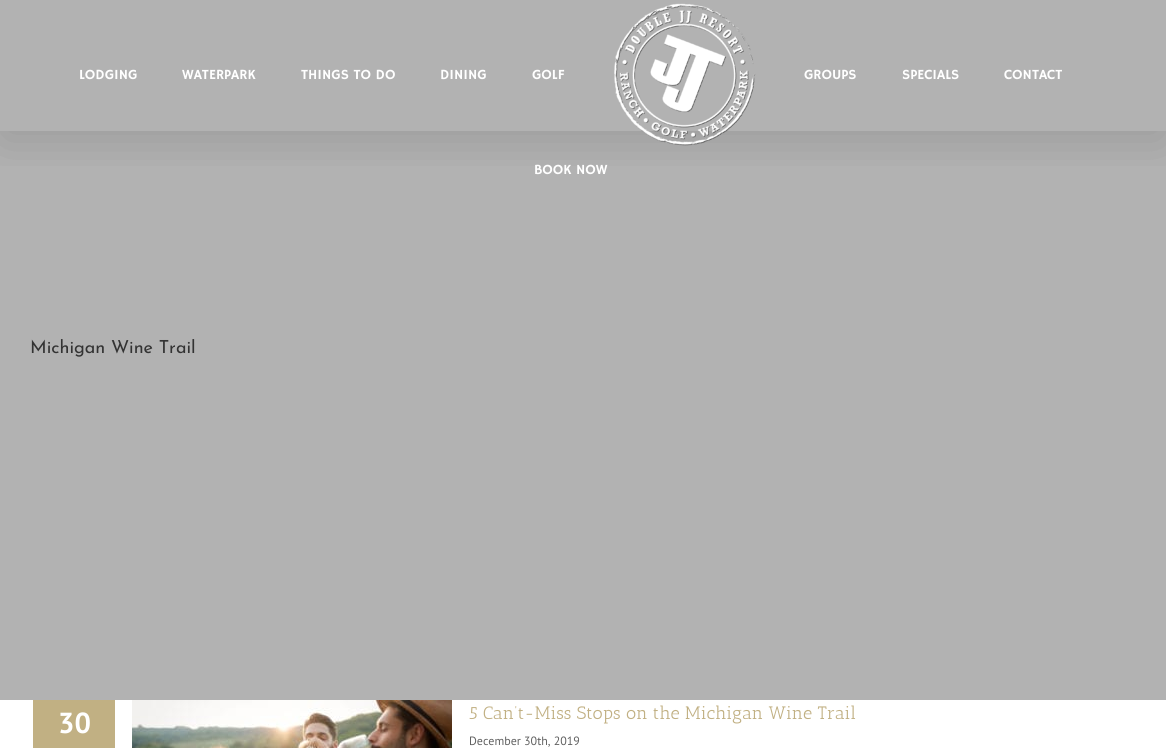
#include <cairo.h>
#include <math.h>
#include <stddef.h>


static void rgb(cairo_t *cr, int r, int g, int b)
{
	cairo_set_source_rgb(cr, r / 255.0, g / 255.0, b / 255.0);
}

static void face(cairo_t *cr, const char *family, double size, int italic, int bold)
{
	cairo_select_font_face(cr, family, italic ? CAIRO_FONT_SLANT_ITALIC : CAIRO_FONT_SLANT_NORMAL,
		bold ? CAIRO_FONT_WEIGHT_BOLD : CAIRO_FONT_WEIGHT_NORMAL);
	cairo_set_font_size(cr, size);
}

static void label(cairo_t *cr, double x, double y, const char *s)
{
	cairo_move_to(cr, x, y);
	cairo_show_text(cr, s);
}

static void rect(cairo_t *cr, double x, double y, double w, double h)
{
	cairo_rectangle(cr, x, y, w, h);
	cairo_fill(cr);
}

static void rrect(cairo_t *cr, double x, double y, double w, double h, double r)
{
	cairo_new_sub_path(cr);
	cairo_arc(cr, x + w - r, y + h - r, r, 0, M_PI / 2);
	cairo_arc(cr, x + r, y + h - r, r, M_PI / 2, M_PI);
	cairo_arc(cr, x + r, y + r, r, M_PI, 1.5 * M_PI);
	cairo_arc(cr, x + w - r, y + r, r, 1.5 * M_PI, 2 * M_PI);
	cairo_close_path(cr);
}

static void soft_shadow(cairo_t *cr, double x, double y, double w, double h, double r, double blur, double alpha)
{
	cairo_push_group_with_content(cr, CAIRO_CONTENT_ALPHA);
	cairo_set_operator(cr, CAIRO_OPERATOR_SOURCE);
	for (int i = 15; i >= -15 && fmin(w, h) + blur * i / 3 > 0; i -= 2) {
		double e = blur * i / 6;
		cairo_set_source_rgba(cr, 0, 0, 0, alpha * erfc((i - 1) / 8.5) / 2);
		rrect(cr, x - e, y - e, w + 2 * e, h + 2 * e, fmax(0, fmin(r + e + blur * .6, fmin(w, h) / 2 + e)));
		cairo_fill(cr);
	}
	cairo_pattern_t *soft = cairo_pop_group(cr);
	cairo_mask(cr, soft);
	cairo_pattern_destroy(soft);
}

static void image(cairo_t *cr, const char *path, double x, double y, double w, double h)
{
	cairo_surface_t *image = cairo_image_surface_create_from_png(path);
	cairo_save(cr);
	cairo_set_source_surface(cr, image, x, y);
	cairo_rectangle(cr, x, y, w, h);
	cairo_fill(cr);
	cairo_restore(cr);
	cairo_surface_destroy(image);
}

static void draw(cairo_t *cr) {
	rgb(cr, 255, 255, 255);
	cairo_paint(cr);
	rgb(cr, 178, 178, 178);
	rect(cr, 0, 0, 1166, 700);
	cairo_save(cr);
	cairo_rectangle(cr, 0, 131, 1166, 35);
	cairo_clip(cr);
	rgb(cr, 0, 0, 0);
	soft_shadow(cr, 2, 12, 1162, 127, 0, 25, 0.14);
	cairo_restore(cr);
	face(cr, "Hammersmith One", 14, 0, 0);
	rgb(cr, 255, 255, 255);
	label(cr, 79, 79, "LODGING");
	label(cr, 182, 79, "WATERPARK");
	label(cr, 301, 79, "THINGS TO DO");
	label(cr, 440, 79, "DINING");
	label(cr, 532, 79, "GOLF");
	image(cr, "image0.png", 614, 3, 142, 143);
	label(cr, 804, 79, "GROUPS");
	label(cr, 902, 79, "SPECIALS");
	label(cr, 1004, 79, "CONTACT");
	label(cr, 534, 174, "BOOK NOW");
	face(cr, "Josefin Sans", 18, 0, 0);
	rgb(cr, 51, 51, 51);
	label(cr, 30, 353, "Michigan Wine Trail");
	rgb(cr, 193, 176, 131);
	rect(cr, 33, 700, 82, 48);
	face(cr, "PT Sans", 29, 0, 1);
	rgb(cr, 255, 255, 255);
	label(cr, 58, 733, "30");
	image(cr, "image1.png", 132, 700, 320, 48);
	face(cr, "Antic Slab", 18, 0, 0);
	rgb(cr, 193, 176, 131);
	label(cr, 469, 719, "5 Can’t-Miss Stops on the Michigan Wine Trail");
	face(cr, "PT Sans", 12, 0, 0);
	rgb(cr, 96, 96, 96);
	label(cr, 469, 745, "December 30th, 2019");
}

int main(void) {
	cairo_surface_t *surface = cairo_image_surface_create(CAIRO_FORMAT_RGB24, 1166, 748);
	cairo_t *cr = cairo_create(surface);
	cairo_font_options_t *options = cairo_font_options_create();
	cairo_font_options_set_hint_metrics(options, CAIRO_HINT_METRICS_OFF);
	cairo_font_options_set_hint_style(options, CAIRO_HINT_STYLE_NONE);
	cairo_set_font_options(cr, options);
	cairo_set_miter_limit(cr, 4);
	draw(cr);
	cairo_surface_write_to_png(surface, "render.png");
	cairo_font_options_destroy(options);
	cairo_destroy(cr);
	cairo_surface_destroy(surface);
	return 0;
}
